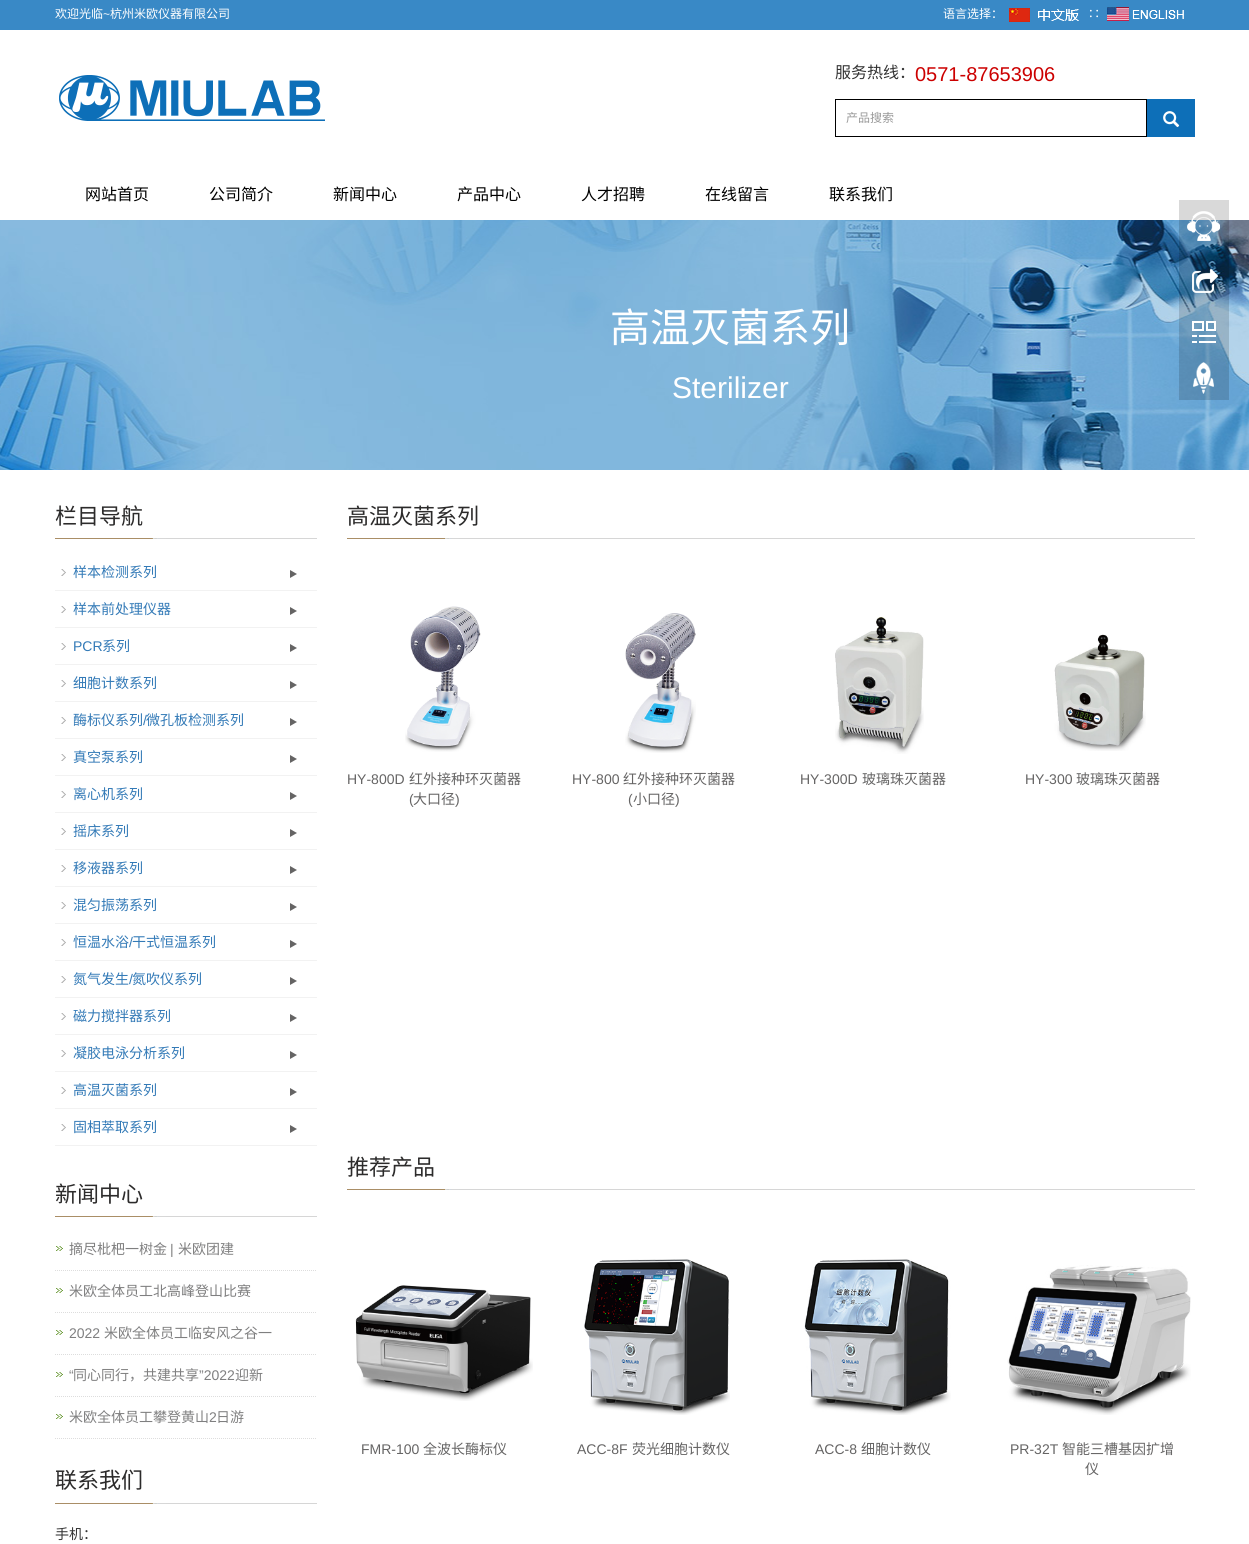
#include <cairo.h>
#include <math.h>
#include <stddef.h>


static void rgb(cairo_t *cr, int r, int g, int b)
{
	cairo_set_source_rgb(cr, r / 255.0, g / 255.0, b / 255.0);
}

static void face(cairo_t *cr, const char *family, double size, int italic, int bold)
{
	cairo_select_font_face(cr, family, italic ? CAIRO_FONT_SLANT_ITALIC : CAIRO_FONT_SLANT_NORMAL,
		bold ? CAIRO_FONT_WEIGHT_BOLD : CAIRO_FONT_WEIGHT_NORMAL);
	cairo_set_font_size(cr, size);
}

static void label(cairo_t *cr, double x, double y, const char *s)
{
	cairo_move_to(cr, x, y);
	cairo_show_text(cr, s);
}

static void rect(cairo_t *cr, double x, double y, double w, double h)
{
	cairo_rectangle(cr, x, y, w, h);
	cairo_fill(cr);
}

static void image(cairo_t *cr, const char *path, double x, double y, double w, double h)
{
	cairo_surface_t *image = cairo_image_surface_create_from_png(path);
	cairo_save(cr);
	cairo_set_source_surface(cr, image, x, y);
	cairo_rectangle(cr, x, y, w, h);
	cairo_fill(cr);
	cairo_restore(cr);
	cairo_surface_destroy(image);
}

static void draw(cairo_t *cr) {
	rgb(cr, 255, 255, 255);
	cairo_paint(cr);
	rgb(cr, 57, 137, 198);
	rect(cr, 0, 0, 1249, 30);
	face(cr, "Noto Sans CJK SC", 12, 0, 0);
	rgb(cr, 255, 255, 255);
	label(cr, 55, 18, "欢迎光临");
	face(cr, "Liberation Sans", 12, 0, 0);
	label(cr, 103, 18, "~");
	face(cr, "Noto Sans CJK SC", 12, 0, 0);
	label(cr, 110, 18, "杭州米欧仪器有限公司");
	label(cr, 943, 18, "语言选择：");
	image(cr, "image0.png", 1009, 8, 70, 14);
	label(cr, 1088, 18, "∷");
	image(cr, "image1.png", 1107, 7, 77, 14);
	image(cr, "image2.png", 59, 75, 266, 46);
	face(cr, "Noto Sans CJK SC", 16, 0, 0);
	rgb(cr, 51, 51, 51);
	label(cr, 835, 78, "服务热线：");
	face(cr, "Liberation Sans", 20, 0, 0);
	rgb(cr, 204, 0, 0);
	label(cr, 915, 81, "0571-87653906");
	cairo_rectangle(cr, 835.5, 99.5, 311, 37);
	rgb(cr, 0, 0, 0);
	cairo_set_line_width(cr, 1);
	cairo_stroke(cr);
	face(cr, "Noto Sans CJK SC", 12, 0, 0);
	rgb(cr, 153, 153, 153);
	label(cr, 846, 122, "产品搜索");
	rgb(cr, 13, 111, 184);
	rect(cr, 1147, 99, 48, 38);
	image(cr, "image3.png", 1163, 111, 17, 17);
	face(cr, "Noto Sans CJK SC", 16, 0, 0);
	rgb(cr, 0, 0, 0);
	label(cr, 85, 200, "网站首页");
	label(cr, 209, 200, "公司简介");
	label(cr, 333, 200, "新闻中心");
	label(cr, 457, 200, "产品中心");
	label(cr, 581, 200, "人才招聘");
	label(cr, 705, 200, "在线留言");
	label(cr, 829, 200, "联系我们");
	image(cr, "image4.png", 0, 220, 1249, 250);
	face(cr, "Noto Sans CJK SC", 40, 0, 0);
	rgb(cr, 255, 255, 255);
	label(cr, 610, 342, "高温灭菌系列");
	face(cr, "Liberation Sans", 30, 0, 0);
	label(cr, 672, 398, "Sterilizer");
	image(cr, "image5.png", 1179, 200, 50, 200);
	image(cr, "image6.png", 55, 538, 262, 1);
	face(cr, "Noto Sans CJK SC", 22, 0, 0);
	rgb(cr, 44, 43, 43);
	label(cr, 55, 524, "栏目导航");
	image(cr, "image7.png", 61, 569, 5, 7);
	rgb(cr, 242, 242, 242);
	rect(cr, 55, 590, 262, 1);
	face(cr, "Noto Sans CJK SC", 14, 0, 0);
	rgb(cr, 51, 122, 183);
	label(cr, 73, 577, "样本检测系列");
	image(cr, "image8.png", 290, 570, 7, 8);
	image(cr, "image7.png", 61, 606, 5, 7);
	rgb(cr, 242, 242, 242);
	rect(cr, 55, 627, 262, 1);
	rgb(cr, 51, 122, 183);
	label(cr, 73, 614, "样本前处理仪器");
	image(cr, "image8.png", 290, 607, 7, 8);
	image(cr, "image7.png", 61, 643, 5, 7);
	rgb(cr, 242, 242, 242);
	rect(cr, 55, 664, 262, 1);
	face(cr, "Liberation Sans", 14, 0, 0);
	rgb(cr, 51, 122, 183);
	label(cr, 73, 651, "PCR");
	face(cr, "Noto Sans CJK SC", 14, 0, 0);
	label(cr, 102, 651, "系列");
	image(cr, "image8.png", 290, 644, 7, 8);
	image(cr, "image7.png", 61, 680, 5, 7);
	rgb(cr, 242, 242, 242);
	rect(cr, 55, 701, 262, 1);
	rgb(cr, 51, 122, 183);
	label(cr, 73, 688, "细胞计数系列");
	image(cr, "image8.png", 290, 681, 7, 8);
	image(cr, "image7.png", 61, 717, 5, 7);
	rgb(cr, 242, 242, 242);
	rect(cr, 55, 738, 262, 1);
	rgb(cr, 51, 122, 183);
	label(cr, 73, 725, "酶标仪系列");
	face(cr, "Liberation Sans", 14, 0, 0);
	label(cr, 143, 725, "/");
	face(cr, "Noto Sans CJK SC", 14, 0, 0);
	label(cr, 146, 725, "微孔板检测系列");
	image(cr, "image8.png", 290, 718, 7, 8);
	image(cr, "image7.png", 61, 754, 5, 7);
	rgb(cr, 242, 242, 242);
	rect(cr, 55, 775, 262, 1);
	rgb(cr, 51, 122, 183);
	label(cr, 73, 762, "真空泵系列");
	image(cr, "image8.png", 290, 755, 7, 8);
	image(cr, "image7.png", 61, 791, 5, 7);
	rgb(cr, 242, 242, 242);
	rect(cr, 55, 812, 262, 1);
	rgb(cr, 51, 122, 183);
	label(cr, 73, 799, "离心机系列");
	image(cr, "image8.png", 290, 792, 7, 8);
	image(cr, "image7.png", 61, 828, 5, 7);
	rgb(cr, 242, 242, 242);
	rect(cr, 55, 849, 262, 1);
	rgb(cr, 51, 122, 183);
	label(cr, 73, 836, "摇床系列");
	image(cr, "image8.png", 290, 829, 7, 8);
	image(cr, "image7.png", 61, 865, 5, 7);
	rgb(cr, 242, 242, 242);
	rect(cr, 55, 886, 262, 1);
	rgb(cr, 51, 122, 183);
	label(cr, 73, 873, "移液器系列");
	image(cr, "image8.png", 290, 866, 7, 8);
	image(cr, "image7.png", 61, 902, 5, 7);
	rgb(cr, 242, 242, 242);
	rect(cr, 55, 923, 262, 1);
	rgb(cr, 51, 122, 183);
	label(cr, 73, 910, "混匀振荡系列");
	image(cr, "image8.png", 290, 903, 7, 8);
	image(cr, "image7.png", 61, 939, 5, 7);
	rgb(cr, 242, 242, 242);
	rect(cr, 55, 960, 262, 1);
	rgb(cr, 51, 122, 183);
	label(cr, 73, 947, "恒温水浴");
	face(cr, "Liberation Sans", 14, 0, 0);
	label(cr, 129, 947, "/");
	face(cr, "Noto Sans CJK SC", 14, 0, 0);
	label(cr, 132, 947, "干式恒温系列");
	image(cr, "image8.png", 290, 940, 7, 8);
	image(cr, "image7.png", 61, 976, 5, 7);
	rgb(cr, 242, 242, 242);
	rect(cr, 55, 997, 262, 1);
	rgb(cr, 51, 122, 183);
	label(cr, 73, 984, "氮气发生");
	face(cr, "Liberation Sans", 14, 0, 0);
	label(cr, 129, 984, "/");
	face(cr, "Noto Sans CJK SC", 14, 0, 0);
	label(cr, 132, 984, "氮吹仪系列");
	image(cr, "image8.png", 290, 977, 7, 8);
	image(cr, "image7.png", 61, 1013, 5, 7);
	rgb(cr, 242, 242, 242);
	rect(cr, 55, 1034, 262, 1);
	rgb(cr, 51, 122, 183);
	label(cr, 73, 1021, "磁力搅拌器系列");
	image(cr, "image8.png", 290, 1014, 7, 8);
	image(cr, "image7.png", 61, 1050, 5, 7);
	rgb(cr, 242, 242, 242);
	rect(cr, 55, 1071, 262, 1);
	rgb(cr, 51, 122, 183);
	label(cr, 73, 1058, "凝胶电泳分析系列");
	image(cr, "image8.png", 290, 1051, 7, 8);
	image(cr, "image7.png", 61, 1087, 5, 7);
	rgb(cr, 242, 242, 242);
	rect(cr, 55, 1108, 262, 1);
	rgb(cr, 51, 122, 183);
	label(cr, 73, 1095, "高温灭菌系列");
	image(cr, "image8.png", 290, 1088, 7, 8);
	image(cr, "image7.png", 61, 1124, 5, 7);
	rgb(cr, 242, 242, 242);
	rect(cr, 55, 1145, 262, 1);
	rgb(cr, 51, 122, 183);
	label(cr, 73, 1132, "固相萃取系列");
	image(cr, "image8.png", 290, 1125, 7, 8);
	image(cr, "image6.png", 55, 1216, 262, 1);
	face(cr, "Noto Sans CJK SC", 22, 0, 0);
	rgb(cr, 44, 43, 43);
	label(cr, 55, 1202, "新闻中心");
	image(cr, "image9.png", 56, 1246, 7, 5);
	cairo_new_path(cr);
	cairo_move_to(cr, 55, 1270.5);
	cairo_line_to(cr, 317, 1270.5);
	rgb(cr, 221, 221, 221);
	cairo_set_dash(cr, (double[]){1, 1}, 2, 0);
	cairo_stroke(cr);
	face(cr, "Noto Sans CJK SC", 14, 0, 0);
	rgb(cr, 127, 127, 128);
	label(cr, 69, 1254, "摘尽枇杷一树金");
	face(cr, "Liberation Sans", 14, 0, 0);
	label(cr, 170, 1254, "|");
	face(cr, "Noto Sans CJK SC", 14, 0, 0);
	label(cr, 178, 1254, "米欧团建");
	image(cr, "image9.png", 56, 1288, 7, 5);
	cairo_new_path(cr);
	cairo_move_to(cr, 55, 1312.5);
	cairo_line_to(cr, 317, 1312.5);
	rgb(cr, 221, 221, 221);
	cairo_stroke(cr);
	rgb(cr, 127, 127, 128);
	label(cr, 69, 1296, "米欧全体员工北高峰登山比赛");
	image(cr, "image9.png", 56, 1330, 7, 5);
	cairo_new_path(cr);
	cairo_move_to(cr, 55, 1354.5);
	cairo_line_to(cr, 317, 1354.5);
	rgb(cr, 221, 221, 221);
	cairo_stroke(cr);
	face(cr, "Liberation Sans", 14, 0, 0);
	rgb(cr, 127, 127, 128);
	label(cr, 69, 1338, "2022");
	face(cr, "Noto Sans CJK SC", 14, 0, 0);
	label(cr, 104, 1338, "米欧全体员工临安风之谷一");
	image(cr, "image9.png", 56, 1372, 7, 5);
	cairo_new_path(cr);
	cairo_move_to(cr, 55, 1396.5);
	cairo_line_to(cr, 317, 1396.5);
	rgb(cr, 221, 221, 221);
	cairo_stroke(cr);
	face(cr, "Liberation Sans", 14, 0, 0);
	rgb(cr, 127, 127, 128);
	label(cr, 69, 1380, "“");
	face(cr, "Noto Sans CJK SC", 14, 0, 0);
	label(cr, 73, 1380, "同心同行，共建共享");
	face(cr, "Liberation Sans", 14, 0, 0);
	label(cr, 199, 1380, "”2022");
	face(cr, "Noto Sans CJK SC", 14, 0, 0);
	label(cr, 235, 1380, "迎新");
	image(cr, "image9.png", 56, 1414, 7, 5);
	cairo_new_path(cr);
	cairo_move_to(cr, 55, 1438.5);
	cairo_line_to(cr, 317, 1438.5);
	rgb(cr, 221, 221, 221);
	cairo_stroke(cr);
	rgb(cr, 127, 127, 128);
	label(cr, 69, 1422, "米欧全体员工攀登黄山");
	face(cr, "Liberation Sans", 14, 0, 0);
	label(cr, 209, 1422, "2");
	face(cr, "Noto Sans CJK SC", 14, 0, 0);
	label(cr, 216, 1422, "日游");
	image(cr, "image6.png", 55, 1503, 262, 1);
	face(cr, "Noto Sans CJK SC", 22, 0, 0);
	rgb(cr, 44, 43, 43);
	label(cr, 55, 1488, "联系我们");
	face(cr, "Noto Sans CJK SC", 14, 0, 0);
	rgb(cr, 51, 51, 51);
	label(cr, 55, 1539, "手机：");
	image(cr, "image10.png", 347, 538, 848, 1);
	face(cr, "Noto Sans CJK SC", 22, 0, 0);
	rgb(cr, 44, 43, 43);
	label(cr, 347, 524, "高温灭菌系列");
	image(cr, "image11.png", 405, 606, 76, 146);
	face(cr, "Liberation Sans", 14, 0, 0);
	rgb(cr, 101, 100, 100);
	label(cr, 347, 784, "HY-800D");
	face(cr, "Noto Sans CJK SC", 14, 0, 0);
	label(cr, 409, 784, "红外接种环灭菌器");
	face(cr, "Liberation Sans", 14, 0, 0);
	label(cr, 409, 804, "(");
	face(cr, "Noto Sans CJK SC", 14, 0, 0);
	label(cr, 413, 804, "大口径");
	face(cr, "Liberation Sans", 14, 0, 0);
	label(cr, 455, 804, ")");
	image(cr, "image12.png", 625, 613, 71, 140);
	label(cr, 572, 784, "HY-800");
	face(cr, "Noto Sans CJK SC", 14, 0, 0);
	label(cr, 623, 784, "红外接种环灭菌器");
	face(cr, "Liberation Sans", 14, 0, 0);
	label(cr, 628, 804, "(");
	face(cr, "Noto Sans CJK SC", 14, 0, 0);
	label(cr, 633, 804, "小口径");
	face(cr, "Liberation Sans", 14, 0, 0);
	label(cr, 675, 804, ")");
	image(cr, "image13.png", 835, 617, 89, 137);
	label(cr, 800, 784, "HY-300D");
	face(cr, "Noto Sans CJK SC", 14, 0, 0);
	label(cr, 862, 784, "玻璃珠灭菌器");
	image(cr, "image14.png", 1054, 634, 92, 117);
	face(cr, "Liberation Sans", 14, 0, 0);
	label(cr, 1025, 784, "HY-300");
	face(cr, "Noto Sans CJK SC", 14, 0, 0);
	label(cr, 1076, 784, "玻璃珠灭菌器");
	image(cr, "image10.png", 347, 1189, 848, 1);
	face(cr, "Noto Sans CJK SC", 22, 0, 0);
	rgb(cr, 44, 43, 43);
	label(cr, 347, 1175, "推荐产品");
	image(cr, "image15.png", 355, 1285, 178, 116);
	face(cr, "Liberation Sans", 14, 0, 0);
	rgb(cr, 101, 100, 100);
	label(cr, 361, 1454, "FMR-100");
	face(cr, "Noto Sans CJK SC", 14, 0, 0);
	label(cr, 423, 1454, "全波长酶标仪");
	image(cr, "image16.png", 584, 1259, 146, 156);
	face(cr, "Liberation Sans", 14, 0, 0);
	label(cr, 577, 1454, "ACC-8F");
	face(cr, "Noto Sans CJK SC", 14, 0, 0);
	label(cr, 632, 1454, "荧光细胞计数仪");
	image(cr, "image17.png", 804, 1259, 147, 156);
	face(cr, "Liberation Sans", 14, 0, 0);
	label(cr, 815, 1454, "ACC-8");
	face(cr, "Noto Sans CJK SC", 14, 0, 0);
	label(cr, 861, 1454, "细胞计数仪");
	image(cr, "image18.png", 1007, 1265, 184, 150);
	face(cr, "Liberation Sans", 14, 0, 0);
	label(cr, 1010, 1454, "PR-32T");
	face(cr, "Noto Sans CJK SC", 14, 0, 0);
	label(cr, 1062, 1454, "智能三槽基因扩增");
	label(cr, 1085, 1474, "仪");
}

int main(void) {
	cairo_surface_t *surface = cairo_image_surface_create(CAIRO_FORMAT_RGB24, 1249, 1544);
	cairo_t *cr = cairo_create(surface);
	cairo_font_options_t *options = cairo_font_options_create();
	cairo_font_options_set_hint_metrics(options, CAIRO_HINT_METRICS_OFF);
	cairo_font_options_set_hint_style(options, CAIRO_HINT_STYLE_NONE);
	cairo_set_font_options(cr, options);
	cairo_set_miter_limit(cr, 4);
	draw(cr);
	cairo_surface_write_to_png(surface, "render.png");
	cairo_font_options_destroy(options);
	cairo_destroy(cr);
	cairo_surface_destroy(surface);
	return 0;
}
